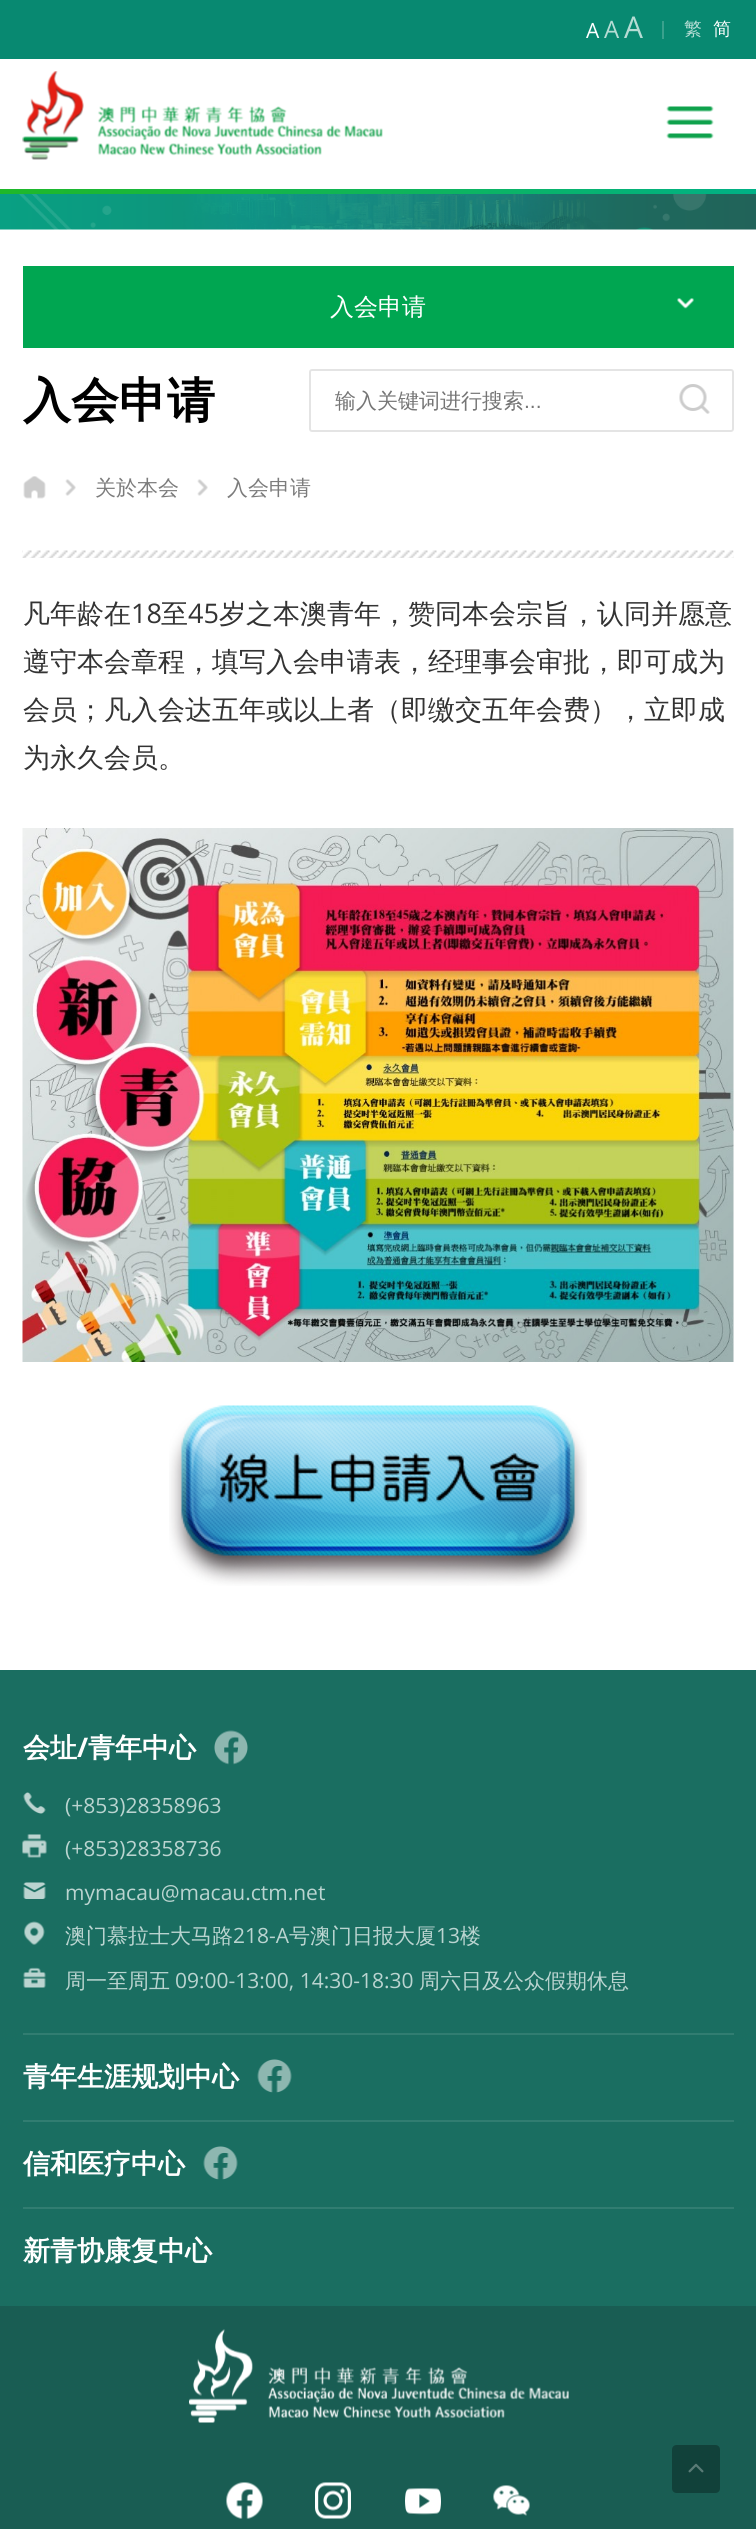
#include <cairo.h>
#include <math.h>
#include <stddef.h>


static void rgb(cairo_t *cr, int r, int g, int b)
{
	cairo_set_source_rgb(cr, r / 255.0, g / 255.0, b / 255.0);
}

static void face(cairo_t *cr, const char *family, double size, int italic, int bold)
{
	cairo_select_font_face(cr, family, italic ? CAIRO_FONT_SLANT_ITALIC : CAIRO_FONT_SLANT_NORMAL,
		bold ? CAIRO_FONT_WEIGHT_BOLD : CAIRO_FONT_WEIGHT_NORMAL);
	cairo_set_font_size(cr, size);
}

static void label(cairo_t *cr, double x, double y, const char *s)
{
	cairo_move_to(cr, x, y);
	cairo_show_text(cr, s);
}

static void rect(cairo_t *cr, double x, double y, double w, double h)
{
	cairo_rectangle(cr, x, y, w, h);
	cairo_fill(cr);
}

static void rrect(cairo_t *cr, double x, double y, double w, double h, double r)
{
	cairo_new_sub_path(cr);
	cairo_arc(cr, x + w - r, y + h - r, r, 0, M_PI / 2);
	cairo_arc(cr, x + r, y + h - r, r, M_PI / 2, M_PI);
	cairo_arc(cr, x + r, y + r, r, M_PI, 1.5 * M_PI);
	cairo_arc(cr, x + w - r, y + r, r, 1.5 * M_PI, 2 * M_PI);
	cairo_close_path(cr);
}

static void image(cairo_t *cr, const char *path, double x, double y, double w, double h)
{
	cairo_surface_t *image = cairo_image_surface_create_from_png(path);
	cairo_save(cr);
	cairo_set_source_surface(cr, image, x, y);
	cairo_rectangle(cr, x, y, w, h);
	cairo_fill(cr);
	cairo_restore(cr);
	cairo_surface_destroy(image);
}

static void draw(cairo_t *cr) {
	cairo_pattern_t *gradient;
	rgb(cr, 255, 255, 255);
	cairo_paint(cr);
	rgb(cr, 8, 137, 113);
	rect(cr, 0, 0, 756, 59);
	face(cr, "Open Sans", 21, 0, 0);
	rgb(cr, 255, 255, 255);
	label(cr, 586, 38, "A");
	face(cr, "Open Sans", 24, 0, 0);
	rgb(cr, 181, 220, 212);
	label(cr, 604, 38, "A");
	face(cr, "Open Sans", 30, 0, 0);
	label(cr, 624, 38, "A");
	rgb(cr, 57, 161, 141);
	rect(cr, 662, 21, 2, 18);
	face(cr, "WenQuanYi Zen Hei Medium", 18, 0, 0);
	rgb(cr, 181, 220, 212);
	label(cr, 684, 35, "繁");
	rgb(cr, 255, 255, 255);
	label(cr, 713, 35, "简");
	image(cr, "image0.png", 22, 71, 361, 89);
	image(cr, "image1.png", 666, 106, 48, 33);
	gradient = cairo_pattern_create_linear(0, 191, 756, 191);
	cairo_pattern_add_color_stop_rgba(gradient, 0, 0.122, 0.722, 0.161, 1);
	cairo_pattern_add_color_stop_rgba(gradient, 1, 0, 0.694, 0.525, 1);
	cairo_set_source(cr, gradient);
	cairo_pattern_destroy(gradient);
	rect(cr, 0, 189, 756, 5);
	image(cr, "image2.png", 0, 194, 756, 36);
	rgb(cr, 25, 93, 83);
	rect(cr, 0, 2306, 756, 223);
	image(cr, "image3.png", 672, 2445, 48, 48);
	rgb(cr, 0, 166, 81);
	rect(cr, 23, 266, 711, 82);
	face(cr, "WenQuanYi Zen Hei Medium", 24, 0, 0);
	rgb(cr, 255, 255, 255);
	label(cr, 330, 315, "入会申请");
	image(cr, "image4.png", 677, 298, 17, 11);
	face(cr, "WenQuanYi Zen Hei", 48, 0, 1);
	rgb(cr, 0, 0, 0);
	label(cr, 23, 417, "入会申请");
	rrect(cr, 310, 370, 423, 61, 2);
	rgb(cr, 228, 228, 228);
	cairo_stroke(cr);
	cairo_save(cr);
	cairo_rectangle(cr, 335, 389, 345, 27);
	cairo_clip(cr);
	face(cr, "WenQuanYi Zen Hei Medium", 21, 0, 0);
	rgb(cr, 117, 117, 117);
	label(cr, 335, 408, "输入关键词进行搜索");
	cairo_restore(cr);
	face(cr, "Liberation Sans", 21, 0, 0);
	rgb(cr, 117, 117, 117);
	label(cr, 524, 408, "...");
	image(cr, "image5.png", 679, 384, 31, 30);
	image(cr, "image6.png", 23, 476, 23, 23);
	image(cr, "image7.png", 65, 479, 11, 17);
	face(cr, "WenQuanYi Zen Hei Medium", 21, 0, 0);
	rgb(cr, 124, 124, 124);
	label(cr, 95, 495, "关於本会");
	image(cr, "image7.png", 197, 479, 11, 17);
	label(cr, 227, 495, "入会申请");
	image(cr, "image8.png", 22, 550, 712, 8);
	face(cr, "WenQuanYi Zen Hei Medium", 27, 0, 0);
	rgb(cr, 51, 51, 51);
	label(cr, 23, 623, "凡年龄在");
	face(cr, "Open Sans", 27, 0, 0);
	label(cr, 131, 623, "18");
	face(cr, "WenQuanYi Zen Hei Medium", 27, 0, 0);
	label(cr, 161, 623, "至");
	face(cr, "Open Sans", 27, 0, 0);
	label(cr, 188, 623, "45");
	face(cr, "WenQuanYi Zen Hei Medium", 27, 0, 0);
	label(cr, 219, 623, "岁之本澳青年，赞同本会宗旨，认同并愿意");
	label(cr, 23, 671, "遵守本会章程，填写入会申请表，经理事会审批，即可成为");
	label(cr, 23, 719, "会员；凡入会达五年或以上者（即缴交五年会费），立即成");
	label(cr, 23, 767, "为永久会员。");
	image(cr, "image9.png", 22, 828, 712, 534);
	image(cr, "image10.png", 169, 1405, 418, 181);
	rgb(cr, 26, 110, 97);
	rect(cr, 0, 1670, 756, 636);
	rgb(cr, 49, 125, 113);
	rect(cr, 23, 2033, 711, 2);
	face(cr, "WenQuanYi Zen Hei", 27, 0, 1);
	rgb(cr, 255, 255, 255);
	label(cr, 23, 1757, "会址");
	face(cr, "Open Sans", 27, 0, 1);
	label(cr, 77, 1757, "/");
	face(cr, "WenQuanYi Zen Hei", 27, 0, 1);
	label(cr, 88, 1757, "青年中心");
	image(cr, "image11.png", 214, 1730, 34, 35);
	image(cr, "image12.png", 23, 1792, 23, 22);
	face(cr, "Open Sans", 21, 0, 0);
	rgb(cr, 186, 212, 208);
	label(cr, 65, 1813, "(+853)28358963");
	image(cr, "image13.png", 22, 1834, 25, 24);
	label(cr, 65, 1856, "(+853)28358736");
	image(cr, "image14.png", 23, 1882, 23, 17);
	label(cr, 65, 1900, "mymacau@macau.ctm.net");
	image(cr, "image15.png", 24, 1921, 21, 24);
	face(cr, "WenQuanYi Zen Hei Medium", 21, 0, 0);
	label(cr, 65, 1943, "澳门慕拉士大马路");
	face(cr, "Open Sans", 21, 0, 0);
	label(cr, 233, 1943, "218-A");
	face(cr, "WenQuanYi Zen Hei Medium", 21, 0, 0);
	label(cr, 289, 1943, "号澳门日报大厦");
	face(cr, "Open Sans", 21, 0, 0);
	label(cr, 436, 1943, "13");
	face(cr, "WenQuanYi Zen Hei Medium", 21, 0, 0);
	label(cr, 460, 1943, "楼");
	image(cr, "image16.png", 23, 1967, 23, 21);
	label(cr, 65, 1988, "周一至周五");
	face(cr, "Open Sans", 21, 0, 0);
	label(cr, 175, 1988, "09:00-13:00, 14:30-18:30");
	face(cr, "WenQuanYi Zen Hei Medium", 21, 0, 0);
	label(cr, 419, 1988, "周六日及公众假期休息");
	rgb(cr, 49, 125, 113);
	rect(cr, 23, 2120, 711, 2);
	face(cr, "WenQuanYi Zen Hei", 27, 0, 1);
	rgb(cr, 255, 255, 255);
	label(cr, 23, 2086, "青年生涯规划中心");
	image(cr, "image17.png", 257, 2059, 35, 34);
	rgb(cr, 49, 125, 113);
	rect(cr, 23, 2207, 711, 2);
	rgb(cr, 255, 255, 255);
	label(cr, 23, 2173, "信和医疗中心");
	image(cr, "image17.png", 203, 2146, 35, 34);
	label(cr, 23, 2260, "新青协康复中心");
	image(cr, "image18.png", 189, 2329, 380, 94);
	image(cr, "image19.png", 226, 2482, 37, 37);
	image(cr, "image20.png", 315, 2482, 36, 37);
	image(cr, "image21.png", 405, 2488, 36, 27);
	image(cr, "image22.png", 493, 2485, 37, 31);
}

int main(void) {
	cairo_surface_t *surface = cairo_image_surface_create(CAIRO_FORMAT_RGB24, 756, 2529);
	cairo_t *cr = cairo_create(surface);
	cairo_font_options_t *options = cairo_font_options_create();
	cairo_font_options_set_hint_metrics(options, CAIRO_HINT_METRICS_OFF);
	cairo_font_options_set_hint_style(options, CAIRO_HINT_STYLE_NONE);
	cairo_set_font_options(cr, options);
	cairo_set_miter_limit(cr, 4);
	draw(cr);
	cairo_surface_write_to_png(surface, "render.png");
	cairo_font_options_destroy(options);
	cairo_destroy(cr);
	cairo_surface_destroy(surface);
	return 0;
}
